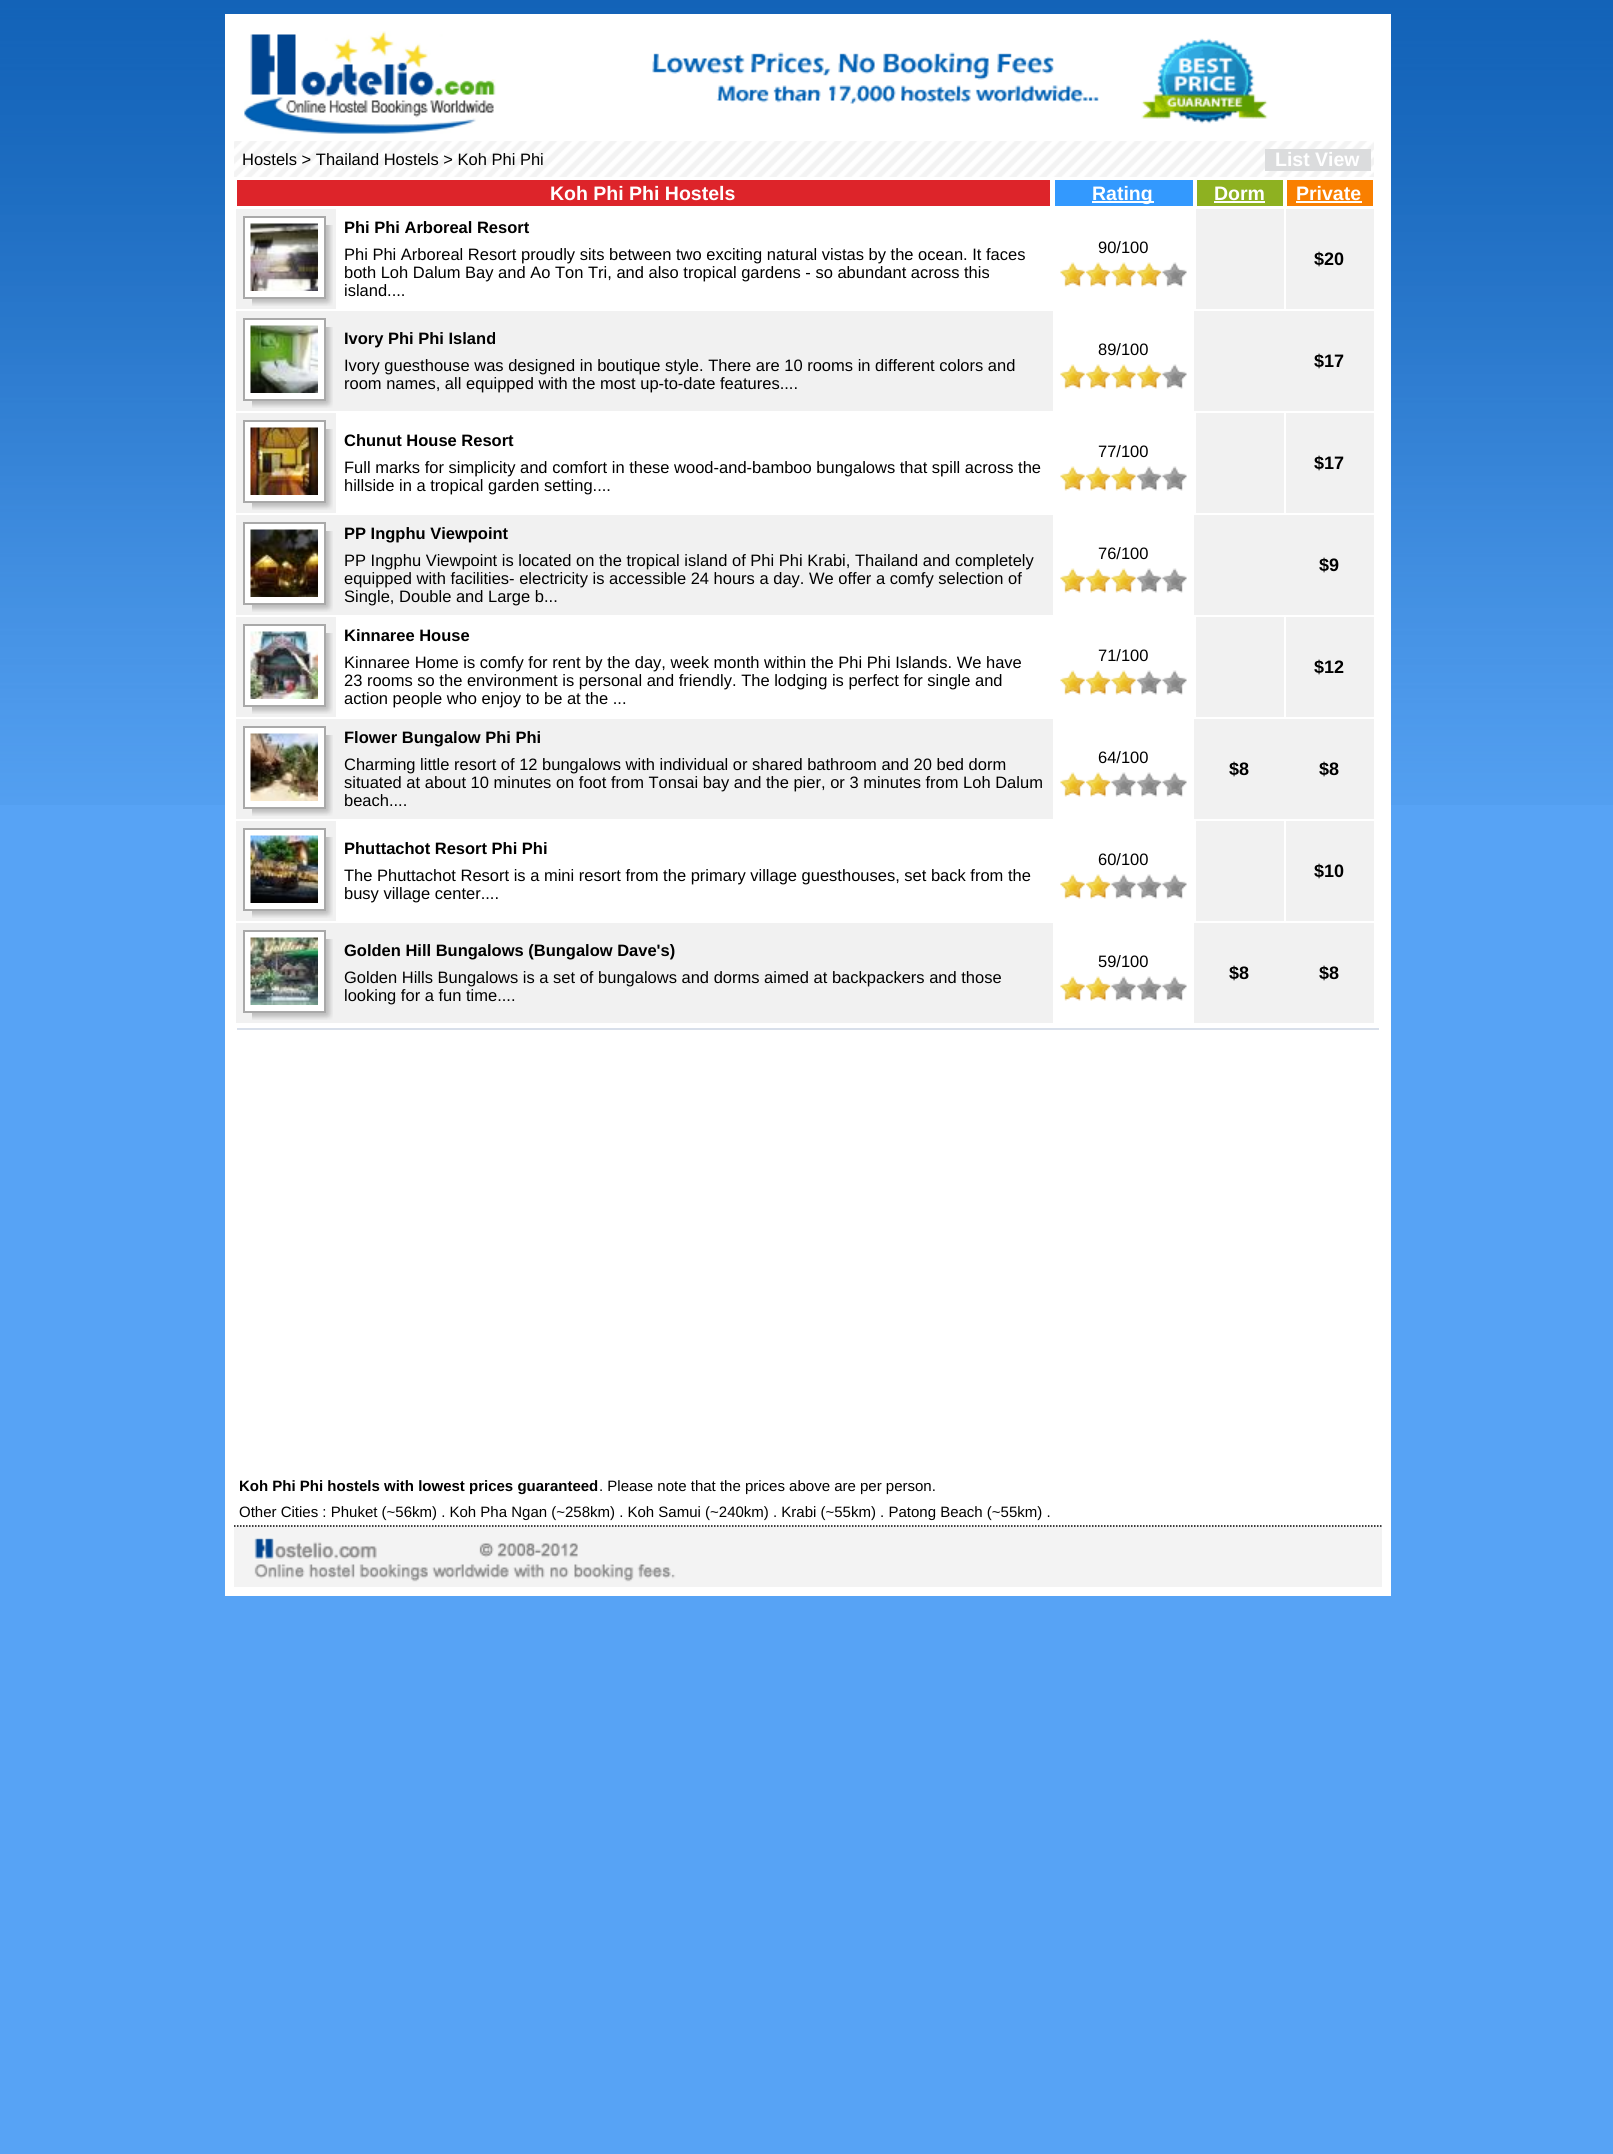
#include <cairo.h>
#include <math.h>
#include <stddef.h>


static void rgb(cairo_t *cr, int r, int g, int b)
{
	cairo_set_source_rgb(cr, r / 255.0, g / 255.0, b / 255.0);
}

static void face(cairo_t *cr, const char *family, double size, int italic, int bold)
{
	cairo_select_font_face(cr, family, italic ? CAIRO_FONT_SLANT_ITALIC : CAIRO_FONT_SLANT_NORMAL,
		bold ? CAIRO_FONT_WEIGHT_BOLD : CAIRO_FONT_WEIGHT_NORMAL);
	cairo_set_font_size(cr, size);
}

static void label(cairo_t *cr, double x, double y, const char *s)
{
	cairo_move_to(cr, x, y);
	cairo_show_text(cr, s);
}

static void rect(cairo_t *cr, double x, double y, double w, double h)
{
	cairo_rectangle(cr, x, y, w, h);
	cairo_fill(cr);
}

static void image(cairo_t *cr, const char *path, double x, double y, double w, double h)
{
	cairo_surface_t *image = cairo_image_surface_create_from_png(path);
	cairo_save(cr);
	cairo_set_source_surface(cr, image, x, y);
	cairo_rectangle(cr, x, y, w, h);
	cairo_fill(cr);
	cairo_restore(cr);
	cairo_surface_destroy(image);
}

static void draw(cairo_t *cr) {
	rgb(cr, 87, 163, 245);
	cairo_paint(cr);
	image(cr, "image0.png", 0, 0, 1613, 805);
	rgb(cr, 255, 255, 255);
	rect(cr, 225, 14, 1166, 1582);
	image(cr, "image1.png", 244, 31, 252, 103);
	image(cr, "image2.png", 652, 38, 616, 86);
	image(cr, "image3.png", 234, 141, 1140, 36);
	face(cr, "Liberation Sans", 16.5, 0, 0);
	rgb(cr, 0, 0, 0);
	label(cr, 242, 165, "Hostels > Thailand Hostels > Koh Phi Phi");
	rgb(cr, 219, 220, 221);
	rect(cr, 1265, 149, 106, 22);
	face(cr, "Liberation Sans", 19.5, 0, 1);
	rgb(cr, 255, 255, 255);
	label(cr, 1275, 166, "List View");
	rgb(cr, 221, 36, 42);
	rect(cr, 237, 180, 813, 26);
	rgb(cr, 255, 255, 255);
	label(cr, 550, 200, "Koh Phi Phi Hostels");
	rgb(cr, 51, 153, 254);
	rect(cr, 1055, 180, 138, 26);
	rgb(cr, 255, 255, 255);
	rect(cr, 1092, 201, 62, 2);
	label(cr, 1092, 200, "Rating");
	rgb(cr, 142, 177, 33);
	rect(cr, 1197, 180, 86, 26);
	rgb(cr, 255, 255, 255);
	label(cr, 1214, 200, "Dorm");
	rect(cr, 1214, 201, 51, 2);
	rgb(cr, 249, 127, 0);
	rect(cr, 1287, 180, 86, 26);
	rgb(cr, 255, 255, 255);
	label(cr, 1296, 200, "Private");
	rect(cr, 1296, 201, 66, 2);
	rgb(cr, 241, 241, 241);
	rect(cr, 236, 209, 100, 100);
	image(cr, "image4.png", 252, 225, 81, 81);
	rgb(cr, 255, 255, 255);
	cairo_rectangle(cr, 244, 217, 81, 81);
	cairo_fill_preserve(cr);
	rgb(cr, 169, 169, 169);
	cairo_stroke(cr);
	image(cr, "image5.png", 250, 223, 68, 68);
	face(cr, "Liberation Sans", 16.5, 0, 1);
	rgb(cr, 0, 0, 0);
	label(cr, 344, 233, "Phi Phi Arboreal Resort");
	face(cr, "Liberation Sans", 16.5, 0, 0);
	label(cr, 344, 260, "Phi Phi Arboreal Resort proudly sits between two exciting natural vistas by the ocean. It faces");
	label(cr, 344, 278, "both Loh Dalum Bay and Ao Ton Tri, and also tropical gardens - so abundant across this");
	label(cr, 344, 296, "island....");
	label(cr, 1098, 253, "90/100");
	image(cr, "image6.png", 1060, 262, 127, 25);
	rgb(cr, 241, 241, 241);
	rect(cr, 1196, 209, 88, 100);
	rect(cr, 1286, 209, 88, 100);
	face(cr, "Liberation Sans", 18, 0, 1);
	rgb(cr, 0, 0, 0);
	label(cr, 1314, 265, "$20");
	rgb(cr, 241, 241, 241);
	rect(cr, 236, 311, 1138, 100);
	image(cr, "image4.png", 252, 327, 81, 81);
	rgb(cr, 255, 255, 255);
	cairo_rectangle(cr, 244, 319, 81, 81);
	cairo_fill_preserve(cr);
	rgb(cr, 169, 169, 169);
	cairo_stroke(cr);
	image(cr, "image7.png", 250, 325, 68, 68);
	face(cr, "Liberation Sans", 16.5, 0, 1);
	rgb(cr, 0, 0, 0);
	label(cr, 344, 344, "Ivory Phi Phi Island");
	face(cr, "Liberation Sans", 16.5, 0, 0);
	label(cr, 344, 371, "Ivory guesthouse was designed in boutique style. There are 10 rooms in different colors and");
	label(cr, 344, 389, "room names, all equipped with the most up-to-date features....");
	rgb(cr, 255, 255, 255);
	rect(cr, 1053, 311, 141, 100);
	rgb(cr, 0, 0, 0);
	label(cr, 1098, 355, "89/100");
	image(cr, "image6.png", 1060, 364, 127, 25);
	face(cr, "Liberation Sans", 18, 0, 1);
	label(cr, 1314, 367, "$17");
	rgb(cr, 241, 241, 241);
	rect(cr, 236, 413, 100, 100);
	image(cr, "image4.png", 252, 429, 81, 81);
	rgb(cr, 255, 255, 255);
	cairo_rectangle(cr, 244, 421, 81, 81);
	cairo_fill_preserve(cr);
	rgb(cr, 169, 169, 169);
	cairo_stroke(cr);
	image(cr, "image8.png", 250, 427, 68, 68);
	face(cr, "Liberation Sans", 16.5, 0, 1);
	rgb(cr, 0, 0, 0);
	label(cr, 344, 446, "Chunut House Resort");
	face(cr, "Liberation Sans", 16.5, 0, 0);
	label(cr, 344, 473, "Full marks for simplicity and comfort in these wood-and-bamboo bungalows that spill across the");
	label(cr, 344, 491, "hillside in a tropical garden setting....");
	label(cr, 1098, 457, "77/100");
	image(cr, "image9.png", 1060, 466, 127, 25);
	rgb(cr, 241, 241, 241);
	rect(cr, 1196, 413, 88, 100);
	rect(cr, 1286, 413, 88, 100);
	face(cr, "Liberation Sans", 18, 0, 1);
	rgb(cr, 0, 0, 0);
	label(cr, 1314, 469, "$17");
	rgb(cr, 241, 241, 241);
	rect(cr, 236, 515, 1138, 100);
	image(cr, "image4.png", 252, 531, 81, 81);
	rgb(cr, 255, 255, 255);
	cairo_rectangle(cr, 244, 523, 81, 81);
	cairo_fill_preserve(cr);
	rgb(cr, 169, 169, 169);
	cairo_stroke(cr);
	image(cr, "image10.png", 250, 529, 68, 68);
	face(cr, "Liberation Sans", 16.5, 0, 1);
	rgb(cr, 0, 0, 0);
	label(cr, 344, 539, "PP Ingphu Viewpoint");
	face(cr, "Liberation Sans", 16.5, 0, 0);
	label(cr, 344, 566, "PP Ingphu Viewpoint is located on the tropical island of Phi Phi Krabi, Thailand and completely");
	label(cr, 344, 584, "equipped with facilities- electricity is accessible 24 hours a day. We offer a comfy selection of");
	label(cr, 344, 602, "Single, Double and Large b...");
	rgb(cr, 255, 255, 255);
	rect(cr, 1053, 515, 141, 100);
	rgb(cr, 0, 0, 0);
	label(cr, 1098, 559, "76/100");
	image(cr, "image9.png", 1060, 568, 127, 25);
	face(cr, "Liberation Sans", 18, 0, 1);
	label(cr, 1319, 571, "$9");
	rgb(cr, 241, 241, 241);
	rect(cr, 236, 617, 100, 100);
	image(cr, "image4.png", 252, 633, 81, 81);
	rgb(cr, 255, 255, 255);
	cairo_rectangle(cr, 244, 625, 81, 81);
	cairo_fill_preserve(cr);
	rgb(cr, 169, 169, 169);
	cairo_stroke(cr);
	image(cr, "image11.png", 250, 631, 68, 68);
	face(cr, "Liberation Sans", 16.5, 0, 1);
	rgb(cr, 0, 0, 0);
	label(cr, 344, 641, "Kinnaree House");
	face(cr, "Liberation Sans", 16.5, 0, 0);
	label(cr, 344, 668, "Kinnaree Home is comfy for rent by the day, week month within the Phi Phi Islands. We have");
	label(cr, 344, 686, "23 rooms so the environment is personal and friendly. The lodging is perfect for single and");
	label(cr, 344, 704, "action people who enjoy to be at the ...");
	label(cr, 1098, 661, "71/100");
	image(cr, "image9.png", 1060, 670, 127, 25);
	rgb(cr, 241, 241, 241);
	rect(cr, 1196, 617, 88, 100);
	rect(cr, 1286, 617, 88, 100);
	face(cr, "Liberation Sans", 18, 0, 1);
	rgb(cr, 0, 0, 0);
	label(cr, 1314, 673, "$12");
	rgb(cr, 241, 241, 241);
	rect(cr, 236, 719, 1138, 100);
	image(cr, "image4.png", 252, 735, 81, 81);
	rgb(cr, 255, 255, 255);
	cairo_rectangle(cr, 244, 727, 81, 81);
	cairo_fill_preserve(cr);
	rgb(cr, 169, 169, 169);
	cairo_stroke(cr);
	image(cr, "image12.png", 250, 733, 68, 68);
	face(cr, "Liberation Sans", 16.5, 0, 1);
	rgb(cr, 0, 0, 0);
	label(cr, 344, 743, "Flower Bungalow Phi Phi");
	face(cr, "Liberation Sans", 16.5, 0, 0);
	label(cr, 344, 770, "Charming little resort of 12 bungalows with individual or shared bathroom and 20 bed dorm");
	label(cr, 344, 788, "situated at about 10 minutes on foot from Tonsai bay and the pier, or 3 minutes from Loh Dalum");
	label(cr, 344, 806, "beach....");
	rgb(cr, 255, 255, 255);
	rect(cr, 1053, 719, 141, 100);
	rgb(cr, 0, 0, 0);
	label(cr, 1098, 763, "64/100");
	image(cr, "image13.png", 1060, 772, 127, 25);
	face(cr, "Liberation Sans", 18, 0, 1);
	label(cr, 1229, 775, "$8");
	label(cr, 1319, 775, "$8");
	rgb(cr, 241, 241, 241);
	rect(cr, 236, 821, 100, 100);
	image(cr, "image4.png", 252, 837, 81, 81);
	rgb(cr, 255, 255, 255);
	cairo_rectangle(cr, 244, 829, 81, 81);
	cairo_fill_preserve(cr);
	rgb(cr, 169, 169, 169);
	cairo_stroke(cr);
	image(cr, "image14.png", 250, 835, 68, 68);
	face(cr, "Liberation Sans", 16.5, 0, 1);
	rgb(cr, 0, 0, 0);
	label(cr, 344, 854, "Phuttachot Resort Phi Phi");
	face(cr, "Liberation Sans", 16.5, 0, 0);
	label(cr, 344, 881, "The Phuttachot Resort is a mini resort from the primary village guesthouses, set back from the");
	label(cr, 344, 899, "busy village center....");
	label(cr, 1098, 865, "60/100");
	image(cr, "image13.png", 1060, 874, 127, 25);
	rgb(cr, 241, 241, 241);
	rect(cr, 1196, 821, 88, 100);
	rect(cr, 1286, 821, 88, 100);
	face(cr, "Liberation Sans", 18, 0, 1);
	rgb(cr, 0, 0, 0);
	label(cr, 1314, 877, "$10");
	rgb(cr, 241, 241, 241);
	rect(cr, 236, 923, 1138, 100);
	image(cr, "image4.png", 252, 939, 81, 81);
	rgb(cr, 255, 255, 255);
	cairo_rectangle(cr, 244, 931, 81, 81);
	cairo_fill_preserve(cr);
	rgb(cr, 169, 169, 169);
	cairo_stroke(cr);
	image(cr, "image15.png", 250, 937, 68, 68);
	face(cr, "Liberation Sans", 16.5, 0, 1);
	rgb(cr, 0, 0, 0);
	label(cr, 344, 956, "Golden Hill Bungalows (Bungalow Dave's)");
	face(cr, "Liberation Sans", 16.5, 0, 0);
	label(cr, 344, 983, "Golden Hills Bungalows is a set of bungalows and dorms aimed at backpackers and those");
	label(cr, 344, 1001, "looking for a fun time....");
	rgb(cr, 255, 255, 255);
	rect(cr, 1053, 923, 141, 100);
	rgb(cr, 0, 0, 0);
	label(cr, 1098, 967, "59/100");
	image(cr, "image13.png", 1060, 976, 127, 25);
	face(cr, "Liberation Sans", 18, 0, 1);
	label(cr, 1229, 979, "$8");
	label(cr, 1319, 979, "$8");
	rgb(cr, 216, 223, 234);
	rect(cr, 237, 1028, 1142, 2);
	face(cr, "Liberation Sans", 15, 0, 1);
	rgb(cr, 0, 0, 0);
	label(cr, 239, 1491, "Koh Phi Phi hostels with lowest prices guaranteed");
	face(cr, "Liberation Sans", 15, 0, 0);
	label(cr, 599, 1491, ". Please note that the prices above are per person.");
	label(cr, 239, 1517, "Other Cities : Phuket (~56km) . Koh Pha Ngan (~258km) . Koh Samui (~240km) . Krabi (~55km) . Patong Beach (~55km) .");
	rgb(cr, 243, 243, 243);
	rect(cr, 234, 1526, 1148, 61);
	image(cr, "image16.png", 234, 1525, 1147, 57);
	cairo_new_path(cr);
	cairo_move_to(cr, 234, 1526);
	cairo_line_to(cr, 1381.5, 1526);
	rgb(cr, 0, 0, 0);
	cairo_set_line_width(cr, 1.5);
	cairo_set_dash(cr, (double[]){1.5, 1.5}, 2, 0);
	cairo_stroke(cr);
}

int main(void) {
	cairo_surface_t *surface = cairo_image_surface_create(CAIRO_FORMAT_RGB24, 1613, 2154);
	cairo_t *cr = cairo_create(surface);
	cairo_font_options_t *options = cairo_font_options_create();
	cairo_font_options_set_hint_metrics(options, CAIRO_HINT_METRICS_OFF);
	cairo_font_options_set_hint_style(options, CAIRO_HINT_STYLE_NONE);
	cairo_set_font_options(cr, options);
	cairo_set_miter_limit(cr, 4);
	draw(cr);
	cairo_surface_write_to_png(surface, "render.png");
	cairo_font_options_destroy(options);
	cairo_destroy(cr);
	cairo_surface_destroy(surface);
	return 0;
}
